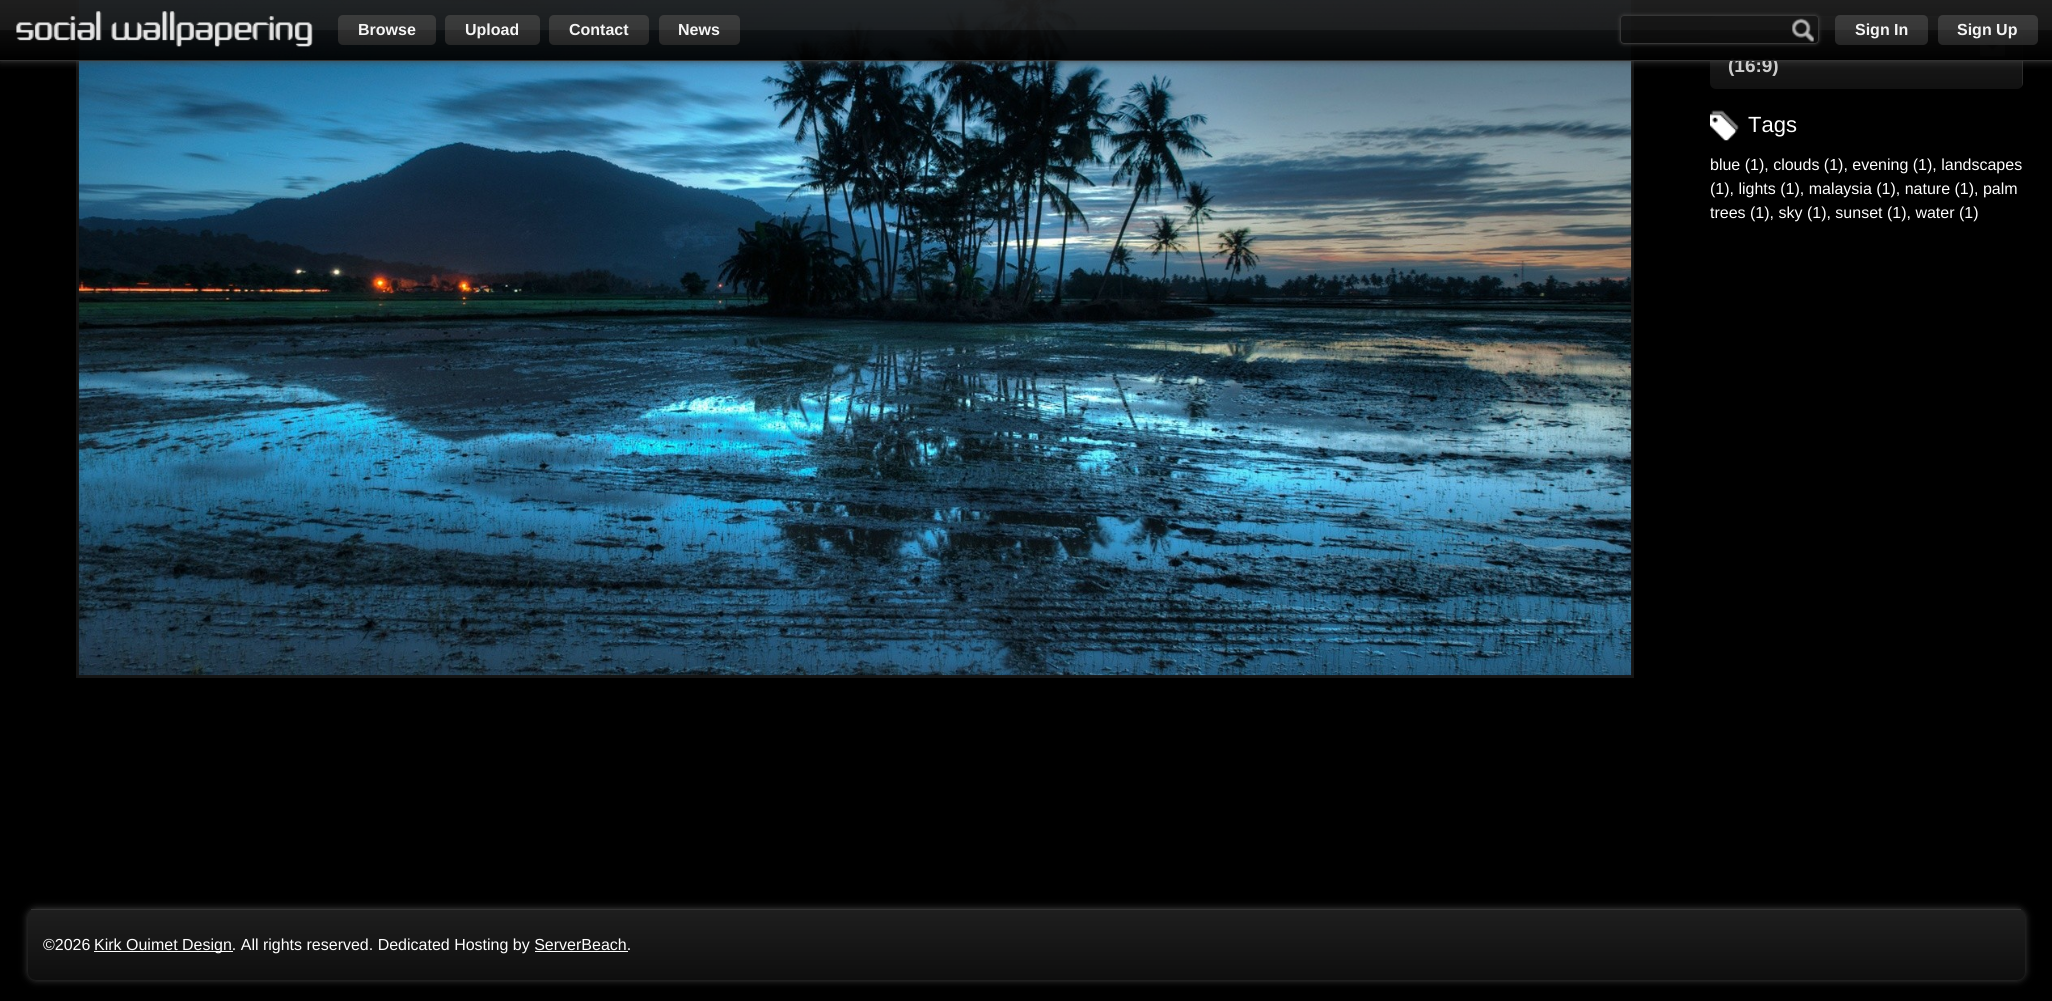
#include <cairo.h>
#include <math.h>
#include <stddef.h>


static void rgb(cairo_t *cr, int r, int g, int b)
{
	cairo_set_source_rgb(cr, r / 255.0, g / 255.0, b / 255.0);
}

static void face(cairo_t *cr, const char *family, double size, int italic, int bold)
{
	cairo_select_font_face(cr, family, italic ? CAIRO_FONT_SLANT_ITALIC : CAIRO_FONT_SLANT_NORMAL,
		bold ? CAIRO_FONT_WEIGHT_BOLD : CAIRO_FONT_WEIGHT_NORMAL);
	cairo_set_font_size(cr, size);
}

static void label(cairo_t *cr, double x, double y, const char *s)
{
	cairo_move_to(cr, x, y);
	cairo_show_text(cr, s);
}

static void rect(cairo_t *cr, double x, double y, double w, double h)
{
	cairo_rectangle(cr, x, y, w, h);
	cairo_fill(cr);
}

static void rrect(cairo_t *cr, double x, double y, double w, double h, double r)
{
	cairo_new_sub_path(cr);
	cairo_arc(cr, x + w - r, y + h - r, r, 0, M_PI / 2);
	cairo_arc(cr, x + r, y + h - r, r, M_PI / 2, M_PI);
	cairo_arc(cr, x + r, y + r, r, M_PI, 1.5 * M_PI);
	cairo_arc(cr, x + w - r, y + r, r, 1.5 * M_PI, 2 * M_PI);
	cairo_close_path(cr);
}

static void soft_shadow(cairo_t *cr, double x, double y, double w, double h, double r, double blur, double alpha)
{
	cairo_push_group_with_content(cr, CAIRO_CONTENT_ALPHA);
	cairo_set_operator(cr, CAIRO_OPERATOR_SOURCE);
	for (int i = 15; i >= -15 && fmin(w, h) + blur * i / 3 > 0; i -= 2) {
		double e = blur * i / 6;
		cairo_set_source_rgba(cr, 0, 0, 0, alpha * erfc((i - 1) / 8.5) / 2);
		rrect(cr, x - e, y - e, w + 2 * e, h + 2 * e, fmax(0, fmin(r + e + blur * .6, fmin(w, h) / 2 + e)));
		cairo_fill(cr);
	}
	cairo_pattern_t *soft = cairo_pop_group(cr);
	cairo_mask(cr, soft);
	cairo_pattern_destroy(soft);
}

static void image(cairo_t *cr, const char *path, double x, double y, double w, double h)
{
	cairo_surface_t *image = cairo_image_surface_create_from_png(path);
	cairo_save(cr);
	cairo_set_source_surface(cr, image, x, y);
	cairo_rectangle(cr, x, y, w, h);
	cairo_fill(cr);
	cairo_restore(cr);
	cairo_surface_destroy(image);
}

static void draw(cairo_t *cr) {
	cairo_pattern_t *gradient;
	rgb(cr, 0, 0, 0);
	cairo_paint(cr);
	cairo_rectangle(cr, 77.5, -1.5, 1555, 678);
	rgb(cr, 21, 21, 21);
	cairo_set_line_width(cr, 3);
	cairo_stroke(cr);
	image(cr, "image2.png", 78, 0, 1554, 676);
	gradient = cairo_pattern_create_linear(1866, 16, 1866, 89);
	cairo_pattern_add_color_stop_rgba(gradient, 0, 0.133, 0.133, 0.133, 1);
	cairo_pattern_add_color_stop_rgba(gradient, 1, 0.067, 0.067, 0.067, 1);
	cairo_set_source(cr, gradient);
	cairo_pattern_destroy(gradient);
	rrect(cr, 1710, 16, 313, 73, 6);
	cairo_fill(cr);
	cairo_set_source_rgba(cr, 1, 1, 1, 0.1);
	cairo_new_path(cr);
	cairo_move_to(cr, 1716, 18);
	cairo_line_to(cr, 2016, 18);
	cairo_curve_to(cr, 2020, 18, 2022, 20, 2022, 24);
	cairo_line_to(cr, 2022, 84);
	cairo_curve_to(cr, 2022, 85, 2022, 86, 2021, 87);
	cairo_curve_to(cr, 2022, 86, 2023, 85, 2023, 83);
	cairo_line_to(cr, 2023, 22);
	cairo_curve_to(cr, 2023, 19, 2020, 16, 2017, 16);
	cairo_line_to(cr, 1716, 16);
	cairo_curve_to(cr, 1713, 16, 1710, 19, 1710, 22);
	cairo_line_to(cr, 1710, 24);
	cairo_curve_to(cr, 1710, 20, 1713, 18, 1716, 18);
	cairo_close_path(cr);
	cairo_fill(cr);
	image(cr, "image3.png", 1980, 26, 25, 31);
	cairo_save(cr);
	cairo_rectangle(cr, 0, 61, 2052, 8);
	cairo_clip(cr);
	rgb(cr, 68, 68, 68);
	soft_shadow(cr, 0, 0, 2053, 61, 0, 4, 0.95);
	cairo_restore(cr);
	face(cr, "Liberation Sans", 19, 0, 1);
	rgb(cr, 204, 204, 204);
	label(cr, 1728, 72, "(16:9)");
	gradient = cairo_pattern_create_linear(1026, 0, 1026, 60);
	cairo_pattern_add_color_stop_rgba(gradient, 0, 0.125, 0.125, 0.125, 0.95);
	cairo_pattern_add_color_stop_rgba(gradient, 0.5, 0.098, 0.098, 0.098, 0.95);
	cairo_pattern_add_color_stop_rgba(gradient, 0.51, 0.047, 0.047, 0.047, 0.95);
	cairo_pattern_add_color_stop_rgba(gradient, 1, 0, 0, 0, 0.95);
	cairo_set_source(cr, gradient);
	cairo_pattern_destroy(gradient);
	rect(cr, 0, 0, 2052, 60);
	gradient = cairo_pattern_create_linear(1026, 60, 1026, 120);
	cairo_pattern_add_color_stop_rgba(gradient, 0, 0.125, 0.125, 0.125, 0.95);
	cairo_pattern_add_color_stop_rgba(gradient, 0.5, 0.098, 0.098, 0.098, 0.95);
	cairo_pattern_add_color_stop_rgba(gradient, 0.51, 0.047, 0.047, 0.047, 0.95);
	cairo_pattern_add_color_stop_rgba(gradient, 1, 0, 0, 0, 0.95);
	cairo_set_source(cr, gradient);
	cairo_pattern_destroy(gradient);
	rect(cr, 0, 60, 2052, 1);
	cairo_set_source_rgba(cr, 0.2, 0.2, 0.2, 0.95);
	rect(cr, 0, 60, 2052, 1);
	image(cr, "image0.png", 16, 11, 297, 36);
	gradient = cairo_pattern_create_linear(387, 15, 387, 45);
	cairo_pattern_add_color_stop_rgba(gradient, 0, 0.239, 0.239, 0.239, 0.95);
	cairo_pattern_add_color_stop_rgba(gradient, 0.5, 0.224, 0.224, 0.224, 0.95);
	cairo_pattern_add_color_stop_rgba(gradient, 0.51, 0.188, 0.188, 0.188, 0.95);
	cairo_pattern_add_color_stop_rgba(gradient, 1, 0.153, 0.153, 0.153, 0.95);
	cairo_set_source(cr, gradient);
	cairo_pattern_destroy(gradient);
	rrect(cr, 338, 15, 98, 30, 5);
	cairo_fill(cr);
	face(cr, "Liberation Sans", 16, 0, 1);
	rgb(cr, 245, 245, 245);
	label(cr, 358, 35, "Browse");
	gradient = cairo_pattern_create_linear(493, 15, 493, 45);
	cairo_pattern_add_color_stop_rgba(gradient, 0, 0.239, 0.239, 0.239, 0.95);
	cairo_pattern_add_color_stop_rgba(gradient, 0.5, 0.224, 0.224, 0.224, 0.95);
	cairo_pattern_add_color_stop_rgba(gradient, 0.51, 0.188, 0.188, 0.188, 0.95);
	cairo_pattern_add_color_stop_rgba(gradient, 1, 0.153, 0.153, 0.153, 0.95);
	cairo_set_source(cr, gradient);
	cairo_pattern_destroy(gradient);
	rrect(cr, 445, 15, 95, 30, 5);
	cairo_fill(cr);
	rgb(cr, 245, 245, 245);
	label(cr, 465, 35, "Upload");
	gradient = cairo_pattern_create_linear(599, 15, 599, 45);
	cairo_pattern_add_color_stop_rgba(gradient, 0, 0.239, 0.239, 0.239, 0.95);
	cairo_pattern_add_color_stop_rgba(gradient, 0.5, 0.224, 0.224, 0.224, 0.95);
	cairo_pattern_add_color_stop_rgba(gradient, 0.51, 0.188, 0.188, 0.188, 0.95);
	cairo_pattern_add_color_stop_rgba(gradient, 1, 0.153, 0.153, 0.153, 0.95);
	cairo_set_source(cr, gradient);
	cairo_pattern_destroy(gradient);
	rrect(cr, 549, 15, 100, 30, 5);
	cairo_fill(cr);
	rgb(cr, 245, 245, 245);
	label(cr, 569, 35, "Contact");
	gradient = cairo_pattern_create_linear(699, 15, 699, 45);
	cairo_pattern_add_color_stop_rgba(gradient, 0, 0.239, 0.239, 0.239, 0.95);
	cairo_pattern_add_color_stop_rgba(gradient, 0.5, 0.224, 0.224, 0.224, 0.95);
	cairo_pattern_add_color_stop_rgba(gradient, 0.51, 0.188, 0.188, 0.188, 0.95);
	cairo_pattern_add_color_stop_rgba(gradient, 1, 0.153, 0.153, 0.153, 0.95);
	cairo_set_source(cr, gradient);
	cairo_pattern_destroy(gradient);
	rrect(cr, 659, 15, 81, 30, 5);
	cairo_fill(cr);
	rgb(cr, 245, 245, 245);
	label(cr, 678, 35, "News");
	cairo_save(cr);
	cairo_set_fill_rule(cr, CAIRO_FILL_RULE_EVEN_ODD);
	cairo_new_path(cr);
	cairo_move_to(cr, 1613, 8);
	cairo_line_to(cr, 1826, 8);
	cairo_line_to(cr, 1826, 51);
	cairo_line_to(cr, 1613, 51);
	cairo_close_path(cr);
	cairo_move_to(cr, 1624, 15);
	cairo_line_to(cr, 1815, 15);
	cairo_curve_to(cr, 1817, 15, 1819, 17, 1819, 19);
	cairo_line_to(cr, 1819, 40);
	cairo_curve_to(cr, 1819, 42, 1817, 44, 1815, 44);
	cairo_line_to(cr, 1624, 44);
	cairo_curve_to(cr, 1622, 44, 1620, 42, 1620, 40);
	cairo_line_to(cr, 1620, 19);
	cairo_curve_to(cr, 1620, 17, 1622, 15, 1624, 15);
	cairo_close_path(cr);
	cairo_clip(cr);
	rgb(cr, 68, 68, 68);
	soft_shadow(cr, 1620, 15, 199, 29, 4, 2, 0.95);
	cairo_restore(cr);
	cairo_set_source_rgba(cr, 0.067, 0.067, 0.067, 0.47);
	rrect(cr, 1620, 15, 199, 29, 4);
	cairo_fill(cr);
	rrect(cr, 1620.5, 15.5, 198, 28, 3.5);
	cairo_set_source_rgba(cr, 0.22, 0.22, 0.22, 0.95);
	cairo_set_line_width(cr, 1);
	cairo_stroke(cr);
	image(cr, "image1.png", 1792, 18, 22, 24);
	gradient = cairo_pattern_create_linear(1881, 15, 1881, 45);
	cairo_pattern_add_color_stop_rgba(gradient, 0, 0.239, 0.239, 0.239, 0.95);
	cairo_pattern_add_color_stop_rgba(gradient, 0.5, 0.224, 0.224, 0.224, 0.95);
	cairo_pattern_add_color_stop_rgba(gradient, 0.51, 0.188, 0.188, 0.188, 0.95);
	cairo_pattern_add_color_stop_rgba(gradient, 1, 0.153, 0.153, 0.153, 0.95);
	cairo_set_source(cr, gradient);
	cairo_pattern_destroy(gradient);
	rrect(cr, 1835, 15, 93, 30, 5);
	cairo_fill(cr);
	rgb(cr, 245, 245, 245);
	label(cr, 1855, 35, "Sign In");
	gradient = cairo_pattern_create_linear(1988, 15, 1988, 45);
	cairo_pattern_add_color_stop_rgba(gradient, 0, 0.239, 0.239, 0.239, 0.95);
	cairo_pattern_add_color_stop_rgba(gradient, 0.5, 0.224, 0.224, 0.224, 0.95);
	cairo_pattern_add_color_stop_rgba(gradient, 0.51, 0.188, 0.188, 0.188, 0.95);
	cairo_pattern_add_color_stop_rgba(gradient, 1, 0.153, 0.153, 0.153, 0.95);
	cairo_set_source(cr, gradient);
	cairo_pattern_destroy(gradient);
	rrect(cr, 1938, 15, 100, 30, 5);
	cairo_fill(cr);
	rgb(cr, 245, 245, 245);
	label(cr, 1957, 35, "Sign Up");
	image(cr, "image4.png", 1710, 110, 29, 31);
	face(cr, "Liberation Sans", 22, 0, 0);
	rgb(cr, 255, 255, 255);
	label(cr, 1748, 132, "Tags");
	face(cr, "Liberation Sans", 16, 0, 0);
	label(cr, 1710, 170, "blue (1), clouds (1), evening (1), landscapes");
	label(cr, 1710, 194, "(1), lights (1), malaysia (1), nature (1), palm");
	label(cr, 1710, 218, "trees (1), sky (1), sunset (1), water (1)");
	rgb(cr, 68, 68, 68);
	soft_shadow(cr, 28, 909, 1997, 71, 8, 4, 1);
	cairo_save(cr);
	rrect(cr, 28, 909, 1997, 71, 8);
	cairo_clip(cr);
	gradient = cairo_pattern_create_linear(1026, 910, 1026, 980);
	cairo_pattern_add_color_stop_rgba(gradient, 0, 0.118, 0.118, 0.118, 1);
	cairo_pattern_add_color_stop_rgba(gradient, 1, 0.055, 0.055, 0.055, 1);
	cairo_set_source(cr, gradient);
	cairo_pattern_destroy(gradient);
	cairo_new_path(cr);
	cairo_move_to(cr, 28, 910);
	cairo_line_to(cr, 2025, 910);
	cairo_line_to(cr, 2025, 972);
	cairo_curve_to(cr, 2025, 976.5, 2021.5, 980, 2017, 980);
	cairo_line_to(cr, 36, 980);
	cairo_curve_to(cr, 31.5, 980, 28, 976.5, 28, 972);
	cairo_close_path(cr);
	cairo_fill(cr);
	cairo_restore(cr);
	rgb(cr, 51, 51, 51);
	rect(cr, 31, 909, 1990, 1);
	rgb(cr, 255, 255, 255);
	label(cr, 43, 950, "©2026");
	rect(cr, 94, 951, 139, 1);
	label(cr, 94, 950, "Kirk Ouimet Design. All rights reserved. Dedicated Hosting by ServerBeach.");
	rect(cr, 535, 951, 93, 1);
}

int main(void) {
	cairo_surface_t *surface = cairo_image_surface_create(CAIRO_FORMAT_RGB24, 2052, 1001);
	cairo_t *cr = cairo_create(surface);
	cairo_font_options_t *options = cairo_font_options_create();
	cairo_font_options_set_hint_metrics(options, CAIRO_HINT_METRICS_OFF);
	cairo_font_options_set_hint_style(options, CAIRO_HINT_STYLE_NONE);
	cairo_set_font_options(cr, options);
	cairo_set_miter_limit(cr, 4);
	draw(cr);
	cairo_surface_write_to_png(surface, "render.png");
	cairo_font_options_destroy(options);
	cairo_destroy(cr);
	cairo_surface_destroy(surface);
	return 0;
}
